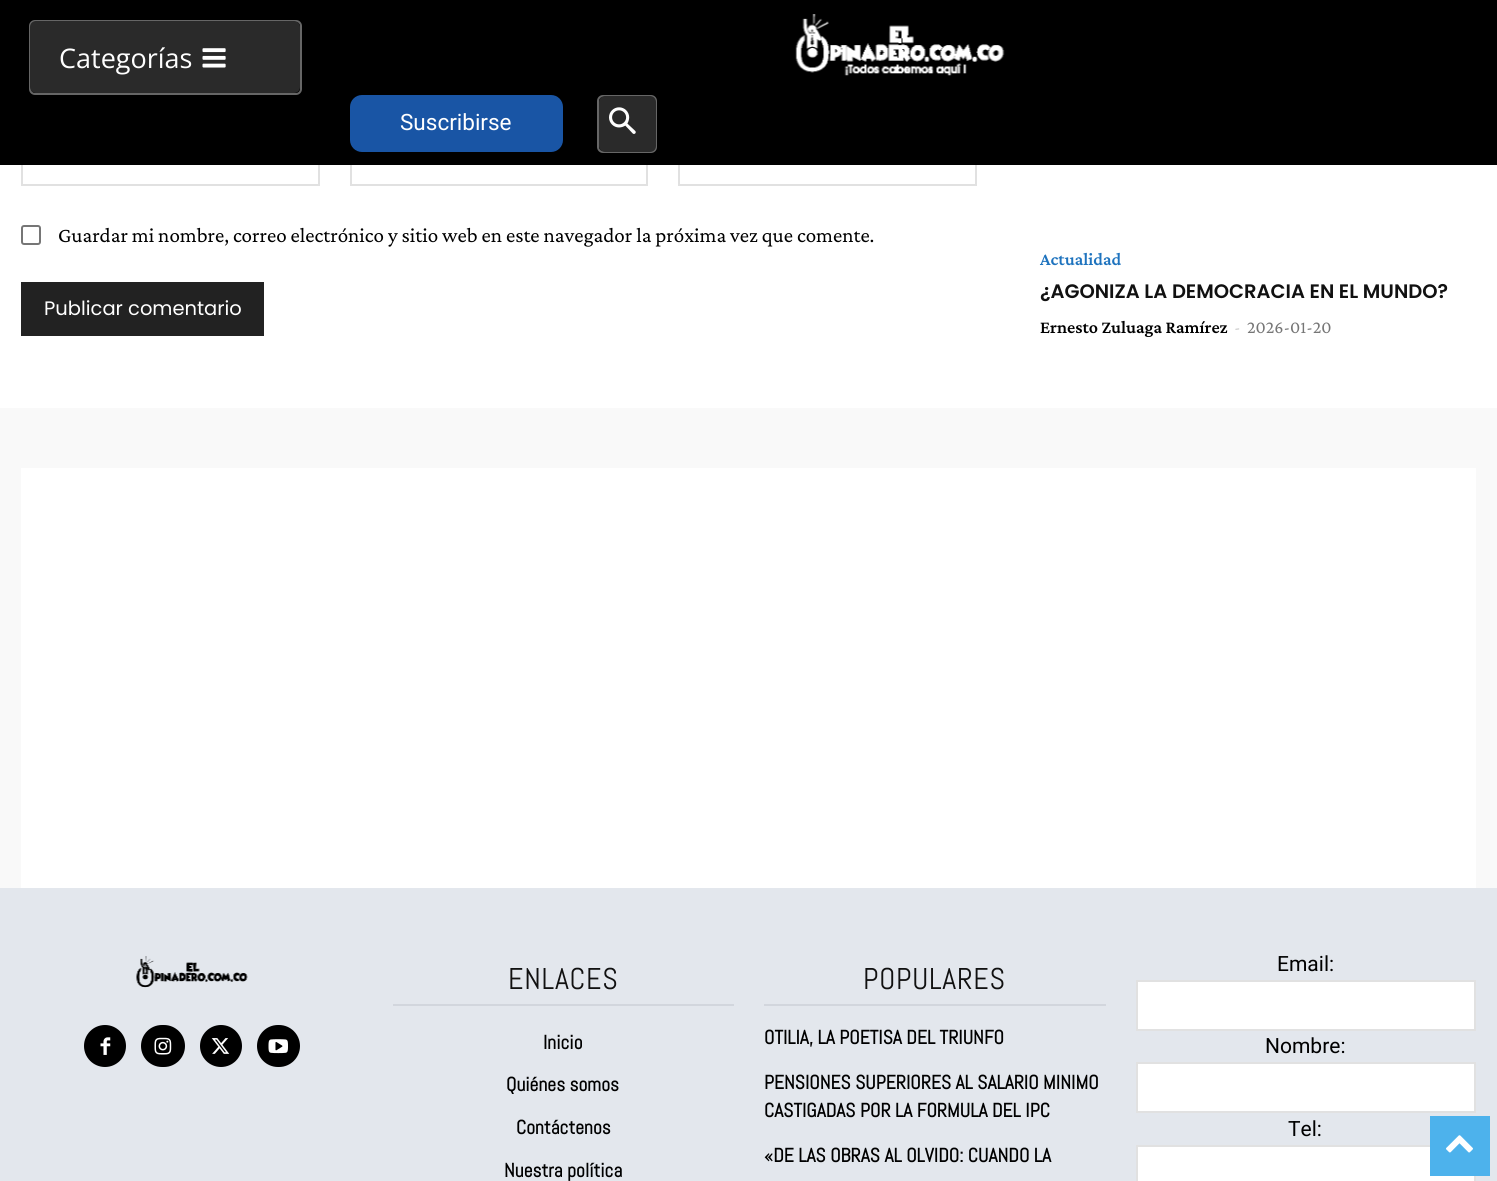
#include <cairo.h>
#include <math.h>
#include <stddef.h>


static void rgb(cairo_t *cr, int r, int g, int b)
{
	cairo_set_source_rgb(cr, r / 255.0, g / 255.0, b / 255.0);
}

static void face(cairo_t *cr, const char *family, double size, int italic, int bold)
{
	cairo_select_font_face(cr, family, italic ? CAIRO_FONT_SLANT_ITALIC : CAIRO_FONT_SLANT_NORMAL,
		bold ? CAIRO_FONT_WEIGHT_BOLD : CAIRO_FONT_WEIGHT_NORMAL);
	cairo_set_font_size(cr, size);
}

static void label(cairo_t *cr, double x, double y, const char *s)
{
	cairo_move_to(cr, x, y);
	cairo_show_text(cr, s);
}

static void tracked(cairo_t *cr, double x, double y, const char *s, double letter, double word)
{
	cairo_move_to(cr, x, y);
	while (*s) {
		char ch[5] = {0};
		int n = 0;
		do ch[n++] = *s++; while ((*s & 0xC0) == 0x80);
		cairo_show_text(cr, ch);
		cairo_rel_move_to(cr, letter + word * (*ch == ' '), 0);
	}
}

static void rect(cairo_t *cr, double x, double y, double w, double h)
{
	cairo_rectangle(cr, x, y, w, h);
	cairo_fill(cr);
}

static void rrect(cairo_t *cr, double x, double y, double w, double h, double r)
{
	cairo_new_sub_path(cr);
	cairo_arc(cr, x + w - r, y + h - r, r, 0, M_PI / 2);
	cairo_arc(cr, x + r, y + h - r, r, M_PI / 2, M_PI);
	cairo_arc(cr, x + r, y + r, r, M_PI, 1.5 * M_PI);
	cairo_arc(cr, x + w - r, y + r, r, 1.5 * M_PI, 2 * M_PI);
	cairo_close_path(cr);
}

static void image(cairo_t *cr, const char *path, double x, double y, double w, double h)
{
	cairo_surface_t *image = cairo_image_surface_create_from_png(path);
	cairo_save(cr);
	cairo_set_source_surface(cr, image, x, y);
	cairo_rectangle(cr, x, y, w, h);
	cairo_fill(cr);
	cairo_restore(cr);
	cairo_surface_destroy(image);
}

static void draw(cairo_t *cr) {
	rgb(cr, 255, 255, 255);
	cairo_paint(cr);
	cairo_rectangle(cr, 22, 136, 297, 49);
	rgb(cr, 225, 225, 225);
	cairo_stroke(cr);
	cairo_rectangle(cr, 351, 136, 296, 49);
	cairo_stroke(cr);
	cairo_rectangle(cr, 679, 136, 297, 49);
	cairo_stroke(cr);
	rgb(cr, 0, 0, 0);
	rect(cr, 0, 0, 1497, 165);
	rrect(cr, 30, 21, 271, 73, 5);
	rgb(cr, 102, 102, 102);
	cairo_stroke(cr);
	rgb(cr, 42, 42, 42);
	rrect(cr, 30, 21, 270, 72, 6);
	cairo_fill(cr);
	face(cr, "Open Sans", 27, 0, 0);
	rgb(cr, 255, 255, 255);
	label(cr, 59, 68, "Categorías");
	image(cr, "image0.png", 202, 48, 24, 20);
	image(cr, "image1.png", 795, 14, 210, 62);
	rgb(cr, 25, 85, 165);
	rrect(cr, 350, 95, 213, 57, 12);
	cairo_fill(cr);
	face(cr, "Roboto", 22.5, 0, 0);
	rgb(cr, 255, 255, 255);
	label(cr, 400, 130, "Suscribirse");
	rrect(cr, 598, 96, 58, 56, 5);
	rgb(cr, 102, 102, 102);
	cairo_stroke(cr);
	rgb(cr, 42, 42, 42);
	rrect(cr, 599, 96, 57, 56, 6);
	cairo_fill(cr);
	image(cr, "image2.png", 609, 107, 27, 27);
	rrect(cr, 22, 226, 18, 18, 2);
	rgb(cr, 118, 118, 118);
	cairo_stroke(cr);
	face(cr, "Crimson Pro", 21, 0, 0);
	rgb(cr, 0, 0, 0);
	label(cr, 58, 242, "Guardar mi nombre, correo electrónico y sitio web en este navegador la próxima vez que comente.");
	rgb(cr, 34, 34, 34);
	rect(cr, 21, 282, 243, 54);
	face(cr, "Poppins", 19.5, 0, 0);
	rgb(cr, 255, 255, 255);
	label(cr, 44, 315, "Publicar comentario");
	face(cr, "Crimson Pro SemiBold", 18, 0, 0);
	rgb(cr, 30, 115, 190);
	label(cr, 1040, 265, "Actualidad");
	face(cr, "Poppins SemiBold", 19.5, 0, 0);
	rgb(cr, 17, 17, 17);
	label(cr, 1040, 298, "¿AGONIZA LA DEMOCRACIA EN EL MUNDO?");
	face(cr, "Crimson Pro SemiBold", 18, 0, 0);
	rgb(cr, 0, 0, 0);
	label(cr, 1040, 333, "Ernesto Zuluaga Ramírez");
	face(cr, "Crimson Pro", 18, 0, 0);
	rgb(cr, 204, 204, 204);
	label(cr, 1234, 333, "-");
	rgb(cr, 118, 118, 118);
	label(cr, 1247, 333, "2026-01-20");
	rgb(cr, 249, 249, 249);
	rect(cr, 0, 408, 1497, 480);
	rgb(cr, 255, 255, 255);
	rect(cr, 21, 468, 1455, 420);
	rgb(cr, 227, 231, 237);
	rect(cr, 0, 888, 1497, 293);
	image(cr, "image3.png", 136, 956, 112, 32);
	rgb(cr, 0, 0, 0);
	cairo_arc(cr, 105, 1046, 21, 0, 2 * M_PI);
	cairo_fill(cr);
	image(cr, "image4.png", 100, 1037, 11, 18);
	rrect(cr, 141, 1025, 44, 42, 21);
	cairo_fill(cr);
	image(cr, "image5.png", 154, 1037, 18, 18);
	cairo_arc(cr, 221, 1046, 21, 0, 2 * M_PI);
	cairo_fill(cr);
	image(cr, "image6.png", 211, 1038, 19, 16);
	rrect(cr, 257, 1025, 43, 42, 21);
	cairo_fill(cr);
	image(cr, "image7.png", 268, 1039, 20, 15);
	rgb(cr, 210, 214, 221);
	rect(cr, 393, 1004, 341, 2);
	face(cr, "Abel", 30, 0, 0);
	rgb(cr, 17, 17, 17);
	tracked(cr, 508, 989, "ENLACES", 0.75, 0);
	face(cr, "Abel", 19.5, 0, 1);
	rgb(cr, 0, 0, 0);
	label(cr, 543, 1049, "Inicio");
	label(cr, 506, 1091, "Quiénes somos");
	label(cr, 516, 1134, "Contáctenos");
	label(cr, 504, 1177, "Nuestra política");
	rgb(cr, 210, 214, 221);
	rect(cr, 764, 1004, 342, 2);
	face(cr, "Abel", 30, 0, 0);
	rgb(cr, 17, 17, 17);
	tracked(cr, 863, 989, "POPULARES", 0.75, 0);
	face(cr, "Abel", 19.5, 0, 1);
	rgb(cr, 0, 0, 0);
	label(cr, 764, 1044, "OTILIA, LA POETISA DEL TRIUNFO");
	label(cr, 764, 1089, "PENSIONES SUPERIORES AL SALARIO MINIMO");
	label(cr, 764, 1117, "CASTIGADAS POR LA FORMULA DEL IPC");
	label(cr, 764, 1162, "«DE LAS OBRAS AL OLVIDO: CUANDO LA");
	face(cr, "Roboto", 21, 0, 0);
	label(cr, 1277, 971, "Email:");
	rgb(cr, 255, 255, 255);
	cairo_rectangle(cr, 1137, 981, 338, 49);
	cairo_fill_preserve(cr);
	rgb(cr, 225, 225, 225);
	cairo_stroke(cr);
	rgb(cr, 0, 0, 0);
	label(cr, 1265, 1053, "Nombre:");
	rgb(cr, 255, 255, 255);
	cairo_rectangle(cr, 1137, 1063, 338, 49);
	cairo_fill_preserve(cr);
	rgb(cr, 225, 225, 225);
	cairo_stroke(cr);
	rgb(cr, 0, 0, 0);
	label(cr, 1288, 1136, "Tel:");
	rgb(cr, 255, 255, 255);
	cairo_rectangle(cr, 1137, 1146, 338, 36);
	cairo_fill_preserve(cr);
	rgb(cr, 225, 225, 225);
	cairo_stroke(cr);
	rgb(cr, 77, 178, 236);
	rect(cr, 1430, 1116, 60, 60);
	image(cr, "image8.png", 1446, 1135, 27, 18);
}

int main(void) {
	cairo_surface_t *surface = cairo_image_surface_create(CAIRO_FORMAT_RGB24, 1497, 1181);
	cairo_t *cr = cairo_create(surface);
	cairo_font_options_t *options = cairo_font_options_create();
	cairo_font_options_set_hint_metrics(options, CAIRO_HINT_METRICS_OFF);
	cairo_font_options_set_hint_style(options, CAIRO_HINT_STYLE_NONE);
	cairo_set_font_options(cr, options);
	cairo_set_miter_limit(cr, 4);
	draw(cr);
	cairo_surface_write_to_png(surface, "render.png");
	cairo_font_options_destroy(options);
	cairo_destroy(cr);
	cairo_surface_destroy(surface);
	return 0;
}
